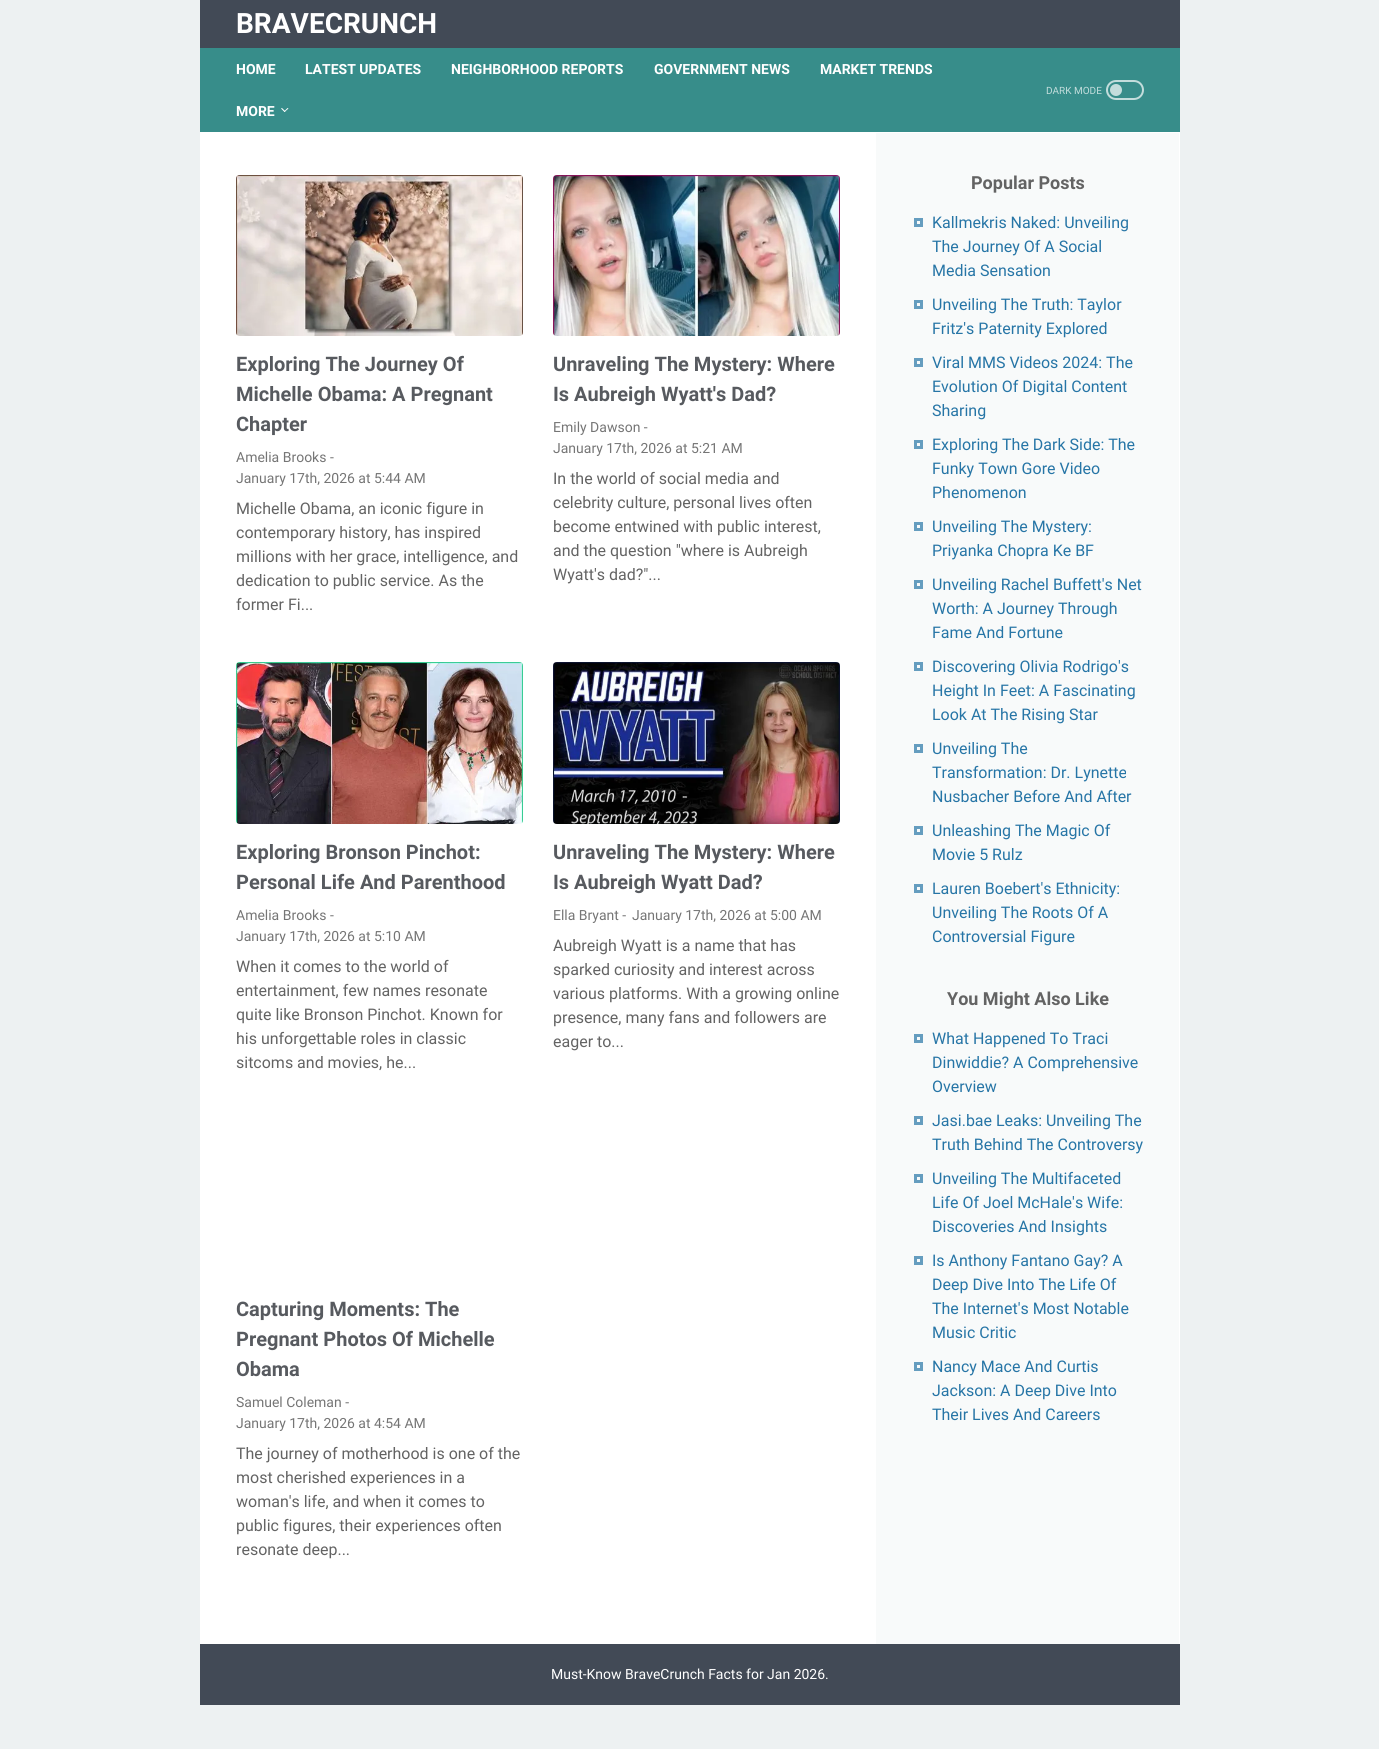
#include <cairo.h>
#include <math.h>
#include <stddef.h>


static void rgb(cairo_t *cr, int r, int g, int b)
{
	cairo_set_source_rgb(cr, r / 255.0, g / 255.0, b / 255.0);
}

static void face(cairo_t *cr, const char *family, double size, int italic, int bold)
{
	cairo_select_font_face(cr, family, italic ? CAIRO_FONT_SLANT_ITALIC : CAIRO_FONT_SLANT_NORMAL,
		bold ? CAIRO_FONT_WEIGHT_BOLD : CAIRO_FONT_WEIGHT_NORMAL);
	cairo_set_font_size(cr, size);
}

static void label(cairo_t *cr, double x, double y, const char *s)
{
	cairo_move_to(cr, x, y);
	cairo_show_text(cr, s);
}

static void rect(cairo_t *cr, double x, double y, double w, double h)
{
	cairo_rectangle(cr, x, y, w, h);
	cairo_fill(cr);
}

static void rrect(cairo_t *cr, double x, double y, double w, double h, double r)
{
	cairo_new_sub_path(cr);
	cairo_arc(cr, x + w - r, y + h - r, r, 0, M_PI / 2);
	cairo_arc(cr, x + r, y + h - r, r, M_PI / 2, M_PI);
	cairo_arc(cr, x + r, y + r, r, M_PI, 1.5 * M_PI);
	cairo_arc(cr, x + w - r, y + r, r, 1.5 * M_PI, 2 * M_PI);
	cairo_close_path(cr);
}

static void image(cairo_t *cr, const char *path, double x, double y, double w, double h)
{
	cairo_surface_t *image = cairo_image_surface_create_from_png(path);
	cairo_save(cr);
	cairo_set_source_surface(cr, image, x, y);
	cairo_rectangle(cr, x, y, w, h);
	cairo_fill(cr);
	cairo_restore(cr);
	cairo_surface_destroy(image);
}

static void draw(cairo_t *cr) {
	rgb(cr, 237, 241, 242);
	cairo_paint(cr);
	rgb(cr, 66, 74, 86);
	rect(cr, 200, 0, 980, 48);
	face(cr, "Roboto", 28, 0, 1);
	rgb(cr, 255, 255, 255);
	label(cr, 236, 33, "BRAVECRUNCH");
	rgb(cr, 55, 141, 138);
	rect(cr, 200, 48, 980, 84);
	face(cr, "Roboto", 14, 0, 1);
	rgb(cr, 255, 255, 255);
	label(cr, 236, 74, "HOME");
	label(cr, 305, 74, "LATEST UPDATES");
	label(cr, 451, 74, "NEIGHBORHOOD REPORTS");
	label(cr, 654, 74, "GOVERNMENT NEWS");
	label(cr, 820, 74, "MARKET TRENDS");
	label(cr, 236, 116, "MORE");
	cairo_new_path(cr);
	cairo_move_to(cr, 284, 111.5);
	cairo_line_to(cr, 287.5, 108);
	cairo_line_to(cr, 288.5, 108.5);
	cairo_line_to(cr, 284.5, 112);
	cairo_close_path(cr);
	cairo_fill(cr);
	cairo_new_path(cr);
	cairo_move_to(cr, 281, 108.5);
	cairo_line_to(cr, 282, 108);
	cairo_line_to(cr, 285.5, 111.5);
	cairo_line_to(cr, 284.5, 112);
	cairo_close_path(cr);
	cairo_fill(cr);
	face(cr, "Roboto", 10, 0, 0);
	rgb(cr, 195, 221, 220);
	label(cr, 1046, 94, "DARK MODE");
	rrect(cr, 1107, 81, 36, 18, 9);
	cairo_stroke(cr);
	cairo_arc(cr, 1116, 90, 6, 0, 2 * M_PI);
	cairo_fill(cr);
	rgb(cr, 255, 255, 255);
	rect(cr, 200, 132, 980, 1512);
	image(cr, "image0.png", 236, 175, 287, 161);
	face(cr, "Roboto", 20, 0, 1);
	rgb(cr, 87, 90, 95);
	label(cr, 236, 371, "Exploring The Journey Of");
	label(cr, 236, 401, "Michelle Obama: A Pregnant");
	label(cr, 236, 431, "Chapter");
	face(cr, "Roboto", 14, 0, 0);
	rgb(cr, 117, 117, 117);
	label(cr, 236, 462, "Amelia Brooks -");
	label(cr, 236, 483, "January 17th, 2026 at 5:44 AM");
	face(cr, "Roboto", 16, 0, 0);
	rgb(cr, 99, 99, 99);
	label(cr, 236, 514, "Michelle Obama, an iconic figure in");
	label(cr, 236, 538, "contemporary history, has inspired");
	label(cr, 236, 562, "millions with her grace, intelligence, and");
	label(cr, 236, 586, "dedication to public service. As the");
	label(cr, 236, 610, "former Fi...");
	image(cr, "image1.png", 553, 175, 287, 161);
	face(cr, "Roboto", 20, 0, 1);
	rgb(cr, 87, 90, 95);
	label(cr, 553, 371, "Unraveling The Mystery: Where");
	label(cr, 553, 401, "Is Aubreigh Wyatt's Dad?");
	face(cr, "Roboto", 14, 0, 0);
	rgb(cr, 117, 117, 117);
	label(cr, 553, 432, "Emily Dawson -");
	label(cr, 553, 453, "January 17th, 2026 at 5:21 AM");
	face(cr, "Roboto", 16, 0, 0);
	rgb(cr, 99, 99, 99);
	label(cr, 553, 484, "In the world of social media and");
	label(cr, 553, 508, "celebrity culture, personal lives often");
	label(cr, 553, 532, "become entwined with public interest,");
	label(cr, 553, 556, "and the question \"where is Aubreigh");
	label(cr, 553, 580, "Wyatt's dad?\"...");
	image(cr, "image2.png", 236, 662, 287, 162);
	face(cr, "Roboto", 20, 0, 1);
	rgb(cr, 87, 90, 95);
	label(cr, 236, 859, "Exploring Bronson Pinchot:");
	label(cr, 236, 889, "Personal Life And Parenthood");
	face(cr, "Roboto", 14, 0, 0);
	rgb(cr, 117, 117, 117);
	label(cr, 236, 920, "Amelia Brooks -");
	label(cr, 236, 941, "January 17th, 2026 at 5:10 AM");
	face(cr, "Roboto", 16, 0, 0);
	rgb(cr, 99, 99, 99);
	label(cr, 236, 972, "When it comes to the world of");
	label(cr, 236, 996, "entertainment, few names resonate");
	label(cr, 236, 1020, "quite like Bronson Pinchot. Known for");
	label(cr, 236, 1044, "his unforgettable roles in classic");
	label(cr, 236, 1068, "sitcoms and movies, he...");
	image(cr, "image3.png", 553, 662, 287, 162);
	face(cr, "Roboto", 20, 0, 1);
	rgb(cr, 87, 90, 95);
	label(cr, 553, 859, "Unraveling The Mystery: Where");
	label(cr, 553, 889, "Is Aubreigh Wyatt Dad?");
	face(cr, "Roboto", 14, 0, 0);
	rgb(cr, 117, 117, 117);
	label(cr, 553, 920, "Ella Bryant -");
	label(cr, 632, 920, "January 17th, 2026 at 5:00 AM");
	face(cr, "Roboto", 16, 0, 0);
	rgb(cr, 99, 99, 99);
	label(cr, 553, 951, "Aubreigh Wyatt is a name that has");
	label(cr, 553, 975, "sparked curiosity and interest across");
	label(cr, 553, 999, "various platforms. With a growing online");
	label(cr, 553, 1023, "presence, many fans and followers are");
	label(cr, 553, 1047, "eager to...");
	face(cr, "Roboto", 20, 0, 1);
	rgb(cr, 87, 90, 95);
	label(cr, 236, 1316, "Capturing Moments: The");
	label(cr, 236, 1346, "Pregnant Photos Of Michelle");
	label(cr, 236, 1376, "Obama");
	face(cr, "Roboto", 14, 0, 0);
	rgb(cr, 117, 117, 117);
	label(cr, 236, 1407, "Samuel Coleman -");
	label(cr, 236, 1428, "January 17th, 2026 at 4:54 AM");
	face(cr, "Roboto", 16, 0, 0);
	rgb(cr, 99, 99, 99);
	label(cr, 236, 1459, "The journey of motherhood is one of the");
	label(cr, 236, 1483, "most cherished experiences in a");
	label(cr, 236, 1507, "woman's life, and when it comes to");
	label(cr, 236, 1531, "public figures, their experiences often");
	label(cr, 236, 1555, "resonate deep...");
	rgb(cr, 248, 250, 250);
	rect(cr, 876, 133, 303, 1511);
	face(cr, "Roboto", 18, 0, 1);
	rgb(cr, 99, 99, 99);
	label(cr, 971, 189, "Popular Posts");
	cairo_rectangle(cr, 915.5, 219.5, 6, 6);
	rgb(cr, 101, 157, 191);
	cairo_set_line_width(cr, 3);
	cairo_stroke(cr);
	face(cr, "Roboto", 16, 0, 0);
	rgb(cr, 38, 117, 166);
	label(cr, 932, 228, "Kallmekris Naked: Unveiling");
	label(cr, 932, 252, "The Journey Of A Social");
	label(cr, 932, 276, "Media Sensation");
	cairo_rectangle(cr, 915.5, 301.5, 6, 6);
	rgb(cr, 101, 157, 191);
	cairo_stroke(cr);
	rgb(cr, 38, 117, 166);
	label(cr, 932, 310, "Unveiling The Truth: Taylor");
	label(cr, 932, 334, "Fritz's Paternity Explored");
	cairo_rectangle(cr, 915.5, 359.5, 6, 6);
	rgb(cr, 101, 157, 191);
	cairo_stroke(cr);
	rgb(cr, 38, 117, 166);
	label(cr, 932, 368, "Viral MMS Videos 2024: The");
	label(cr, 932, 392, "Evolution Of Digital Content");
	label(cr, 932, 416, "Sharing");
	cairo_rectangle(cr, 915.5, 441.5, 6, 6);
	rgb(cr, 101, 157, 191);
	cairo_stroke(cr);
	rgb(cr, 38, 117, 166);
	label(cr, 932, 450, "Exploring The Dark Side: The");
	label(cr, 932, 474, "Funky Town Gore Video");
	label(cr, 932, 498, "Phenomenon");
	cairo_rectangle(cr, 915.5, 523.5, 6, 6);
	rgb(cr, 101, 157, 191);
	cairo_stroke(cr);
	rgb(cr, 38, 117, 166);
	label(cr, 932, 532, "Unveiling The Mystery:");
	label(cr, 932, 556, "Priyanka Chopra Ke BF");
	cairo_rectangle(cr, 915.5, 581.5, 6, 6);
	rgb(cr, 101, 157, 191);
	cairo_stroke(cr);
	rgb(cr, 38, 117, 166);
	label(cr, 932, 590, "Unveiling Rachel Buffett's Net");
	label(cr, 932, 614, "Worth: A Journey Through");
	label(cr, 932, 638, "Fame And Fortune");
	cairo_rectangle(cr, 915.5, 663.5, 6, 6);
	rgb(cr, 101, 157, 191);
	cairo_stroke(cr);
	rgb(cr, 38, 117, 166);
	label(cr, 932, 672, "Discovering Olivia Rodrigo's");
	label(cr, 932, 696, "Height In Feet: A Fascinating");
	label(cr, 932, 720, "Look At The Rising Star");
	cairo_rectangle(cr, 915.5, 745.5, 6, 6);
	rgb(cr, 101, 157, 191);
	cairo_stroke(cr);
	rgb(cr, 38, 117, 166);
	label(cr, 932, 754, "Unveiling The");
	label(cr, 932, 778, "Transformation: Dr. Lynette");
	label(cr, 932, 802, "Nusbacher Before And After");
	cairo_rectangle(cr, 915.5, 827.5, 6, 6);
	rgb(cr, 101, 157, 191);
	cairo_stroke(cr);
	rgb(cr, 38, 117, 166);
	label(cr, 932, 836, "Unleashing The Magic Of");
	label(cr, 932, 860, "Movie 5 Rulz");
	cairo_rectangle(cr, 915.5, 885.5, 6, 6);
	rgb(cr, 101, 157, 191);
	cairo_stroke(cr);
	rgb(cr, 38, 117, 166);
	label(cr, 932, 894, "Lauren Boebert's Ethnicity:");
	label(cr, 932, 918, "Unveiling The Roots Of A");
	label(cr, 932, 942, "Controversial Figure");
	face(cr, "Roboto", 18, 0, 1);
	rgb(cr, 99, 99, 99);
	label(cr, 947, 1005, "You Might Also Like");
	cairo_rectangle(cr, 915.5, 1035.5, 6, 6);
	rgb(cr, 101, 157, 191);
	cairo_stroke(cr);
	face(cr, "Roboto", 16, 0, 0);
	rgb(cr, 38, 117, 166);
	label(cr, 932, 1044, "What Happened To Traci");
	label(cr, 932, 1068, "Dinwiddie? A Comprehensive");
	label(cr, 932, 1092, "Overview");
	cairo_rectangle(cr, 915.5, 1117.5, 6, 6);
	rgb(cr, 101, 157, 191);
	cairo_stroke(cr);
	rgb(cr, 38, 117, 166);
	label(cr, 932, 1126, "Jasi.bae Leaks: Unveiling The");
	label(cr, 932, 1150, "Truth Behind The Controversy");
	cairo_rectangle(cr, 915.5, 1175.5, 6, 6);
	rgb(cr, 101, 157, 191);
	cairo_stroke(cr);
	rgb(cr, 38, 117, 166);
	label(cr, 932, 1184, "Unveiling The Multifaceted");
	label(cr, 932, 1208, "Life Of Joel McHale's Wife:");
	label(cr, 932, 1232, "Discoveries And Insights");
	cairo_rectangle(cr, 915.5, 1257.5, 6, 6);
	rgb(cr, 101, 157, 191);
	cairo_stroke(cr);
	rgb(cr, 38, 117, 166);
	label(cr, 932, 1266, "Is Anthony Fantano Gay? A");
	label(cr, 932, 1290, "Deep Dive Into The Life Of");
	label(cr, 932, 1314, "The Internet's Most Notable");
	label(cr, 932, 1338, "Music Critic");
	cairo_rectangle(cr, 915.5, 1363.5, 6, 6);
	rgb(cr, 101, 157, 191);
	cairo_stroke(cr);
	rgb(cr, 38, 117, 166);
	label(cr, 932, 1372, "Nancy Mace And Curtis");
	label(cr, 932, 1396, "Jackson: A Deep Dive Into");
	label(cr, 932, 1420, "Their Lives And Careers");
	rgb(cr, 66, 74, 86);
	rect(cr, 200, 1644, 980, 61);
	face(cr, "Roboto", 14, 0, 0);
	rgb(cr, 255, 255, 255);
	label(cr, 551, 1679, "Must-Know BraveCrunch Facts for Jan 2026.");
}

int main(void) {
	cairo_surface_t *surface = cairo_image_surface_create(CAIRO_FORMAT_RGB24, 1379, 1749);
	cairo_t *cr = cairo_create(surface);
	cairo_font_options_t *options = cairo_font_options_create();
	cairo_font_options_set_hint_metrics(options, CAIRO_HINT_METRICS_OFF);
	cairo_font_options_set_hint_style(options, CAIRO_HINT_STYLE_NONE);
	cairo_set_font_options(cr, options);
	cairo_set_miter_limit(cr, 4);
	draw(cr);
	cairo_surface_write_to_png(surface, "render.png");
	cairo_font_options_destroy(options);
	cairo_destroy(cr);
	cairo_surface_destroy(surface);
	return 0;
}
